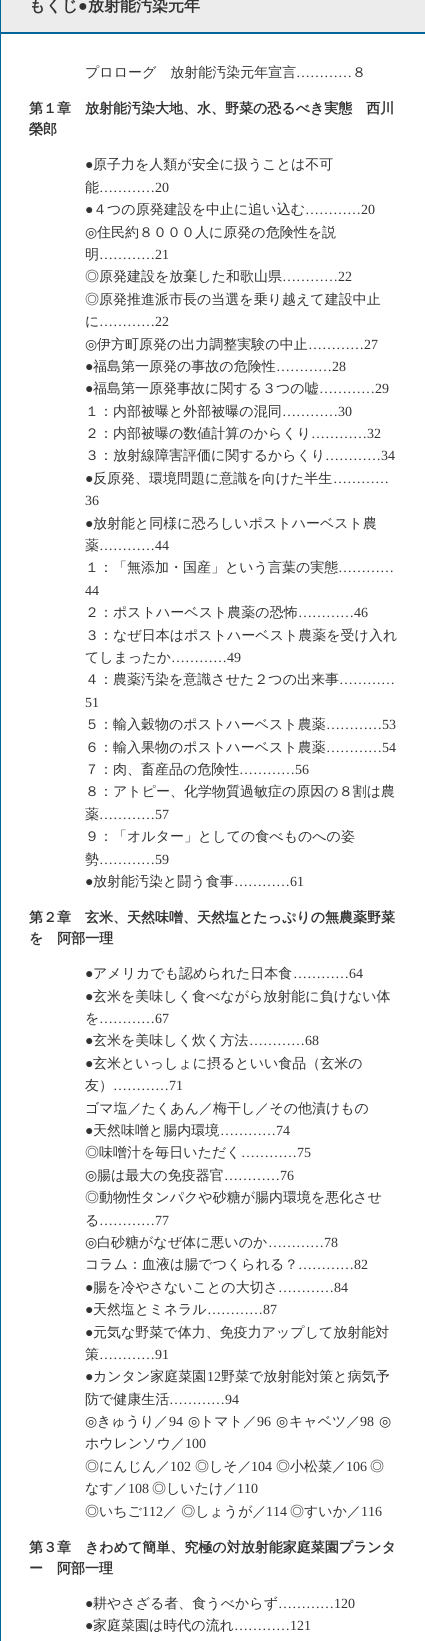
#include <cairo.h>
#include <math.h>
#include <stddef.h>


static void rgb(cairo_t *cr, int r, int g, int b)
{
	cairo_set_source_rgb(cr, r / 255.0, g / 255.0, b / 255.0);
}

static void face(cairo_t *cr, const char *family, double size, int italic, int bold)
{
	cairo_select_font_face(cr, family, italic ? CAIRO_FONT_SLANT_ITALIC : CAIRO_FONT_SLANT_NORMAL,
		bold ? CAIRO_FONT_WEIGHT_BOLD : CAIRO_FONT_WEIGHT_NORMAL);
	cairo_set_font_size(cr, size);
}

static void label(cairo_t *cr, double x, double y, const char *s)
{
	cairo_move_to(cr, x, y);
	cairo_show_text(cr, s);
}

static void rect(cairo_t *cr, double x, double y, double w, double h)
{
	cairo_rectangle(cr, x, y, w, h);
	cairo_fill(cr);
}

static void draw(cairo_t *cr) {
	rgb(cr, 255, 255, 255);
	cairo_paint(cr);
	rgb(cr, 0, 102, 153);
	rect(cr, 0, 0, 1, 1641);
	rgb(cr, 236, 236, 236);
	rect(cr, 1, 0, 424, 32);
	rgb(cr, 0, 102, 153);
	rect(cr, 1, 32, 424, 2);
	face(cr, "WenQuanYi Zen Hei", 16, 0, 1);
	rgb(cr, 51, 51, 51);
	label(cr, 29, 11, "もくじ");
	face(cr, "Liberation Serif", 16, 0, 1);
	label(cr, 78, 11, "●");
	face(cr, "WenQuanYi Zen Hei", 16, 0, 1);
	label(cr, 88, 11, "放射能汚染元年");
	face(cr, "WenQuanYi Zen Hei Medium", 14, 0, 0);
	label(cr, 85, 77, "プロローグ　放射能汚染元年宣言");
	face(cr, "Liberation Serif", 14, 0, 0);
	label(cr, 296, 77, "…………");
	face(cr, "WenQuanYi Zen Hei Medium", 14, 0, 0);
	label(cr, 352, 77, "８");
	face(cr, "WenQuanYi Zen Hei", 14, 0, 1);
	label(cr, 29, 113, "第１章　放射能汚染大地、水、野菜の恐るべき実態　西川");
	label(cr, 29, 134, "榮郎");
	face(cr, "Liberation Serif", 14, 0, 0);
	label(cr, 85, 169, "●");
	face(cr, "WenQuanYi Zen Hei Medium", 14, 0, 0);
	label(cr, 93, 169, "原子力を人類が安全に扱うことは不可");
	label(cr, 85, 192, "能");
	face(cr, "Liberation Serif", 14, 0, 0);
	label(cr, 99, 192, "…………20");
	label(cr, 85, 214, "●");
	face(cr, "WenQuanYi Zen Hei Medium", 14, 0, 0);
	label(cr, 93, 214, "４つの原発建設を中止に追い込む");
	face(cr, "Liberation Serif", 14, 0, 0);
	label(cr, 305, 214, "…………20");
	face(cr, "DejaVu Sans", 14, 0, 0);
	label(cr, 85, 237, "◎");
	face(cr, "WenQuanYi Zen Hei Medium", 14, 0, 0);
	label(cr, 97, 237, "住民約８０００人に原発の危険性を説");
	label(cr, 85, 259, "明");
	face(cr, "Liberation Serif", 14, 0, 0);
	label(cr, 99, 259, "…………21");
	face(cr, "WenQuanYi Zen Hei Medium", 14, 0, 0);
	label(cr, 85, 281, "◎原発建設を放棄した和歌山県");
	face(cr, "Liberation Serif", 14, 0, 0);
	label(cr, 282, 281, "…………22");
	face(cr, "WenQuanYi Zen Hei Medium", 14, 0, 0);
	label(cr, 85, 304, "◎原発推進派市長の当選を乗り越えて建設中止");
	label(cr, 85, 326, "に");
	face(cr, "Liberation Serif", 14, 0, 0);
	label(cr, 99, 326, "…………22");
	face(cr, "DejaVu Sans", 14, 0, 0);
	label(cr, 85, 349, "◎");
	face(cr, "WenQuanYi Zen Hei Medium", 14, 0, 0);
	label(cr, 97, 349, "伊方町原発の出力調整実験の中止");
	face(cr, "Liberation Serif", 14, 0, 0);
	label(cr, 308, 349, "…………27");
	label(cr, 85, 371, "●");
	face(cr, "WenQuanYi Zen Hei Medium", 14, 0, 0);
	label(cr, 93, 371, "福島第一原発の事故の危険性");
	face(cr, "Liberation Serif", 14, 0, 0);
	label(cr, 276, 371, "…………28");
	label(cr, 85, 393, "●");
	face(cr, "WenQuanYi Zen Hei Medium", 14, 0, 0);
	label(cr, 93, 393, "福島第一原発事故に関する３つの嘘");
	face(cr, "Liberation Serif", 14, 0, 0);
	label(cr, 319, 393, "…………29");
	face(cr, "WenQuanYi Zen Hei Medium", 14, 0, 0);
	label(cr, 85, 416, "１：内部被曝と外部被曝の混同");
	face(cr, "Liberation Serif", 14, 0, 0);
	label(cr, 282, 416, "…………30");
	face(cr, "WenQuanYi Zen Hei Medium", 14, 0, 0);
	label(cr, 85, 438, "２：内部被曝の数値計算のからくり");
	face(cr, "Liberation Serif", 14, 0, 0);
	label(cr, 311, 438, "…………32");
	face(cr, "WenQuanYi Zen Hei Medium", 14, 0, 0);
	label(cr, 85, 460, "３：放射線障害評価に関するからくり");
	face(cr, "Liberation Serif", 14, 0, 0);
	label(cr, 325, 460, "…………34");
	label(cr, 85, 483, "●");
	face(cr, "WenQuanYi Zen Hei Medium", 14, 0, 0);
	label(cr, 93, 483, "反原発、環境問題に意識を向けた半生");
	face(cr, "Liberation Serif", 14, 0, 0);
	label(cr, 333, 483, "…………");
	label(cr, 85, 505, "36");
	label(cr, 85, 528, "●");
	face(cr, "WenQuanYi Zen Hei Medium", 14, 0, 0);
	label(cr, 93, 528, "放射能と同様に恐ろしいポストハーベスト農");
	label(cr, 85, 550, "薬");
	face(cr, "Liberation Serif", 14, 0, 0);
	label(cr, 99, 550, "…………44");
	face(cr, "WenQuanYi Zen Hei Medium", 14, 0, 0);
	label(cr, 85, 572, "１：「無添加・国産」という言葉の実態");
	face(cr, "Liberation Serif", 14, 0, 0);
	label(cr, 338, 572, "…………");
	label(cr, 85, 595, "44");
	face(cr, "WenQuanYi Zen Hei Medium", 14, 0, 0);
	label(cr, 85, 617, "２：ポストハーベスト農薬の恐怖");
	face(cr, "Liberation Serif", 14, 0, 0);
	label(cr, 298, 617, "…………46");
	face(cr, "WenQuanYi Zen Hei Medium", 14, 0, 0);
	label(cr, 85, 640, "３：なぜ日本はポストハーベスト農薬を受け入れ");
	label(cr, 85, 662, "てしまったか");
	face(cr, "Liberation Serif", 14, 0, 0);
	label(cr, 171, 662, "…………49");
	face(cr, "WenQuanYi Zen Hei Medium", 14, 0, 0);
	label(cr, 85, 684, "４：農薬汚染を意識させた２つの出来事");
	face(cr, "Liberation Serif", 14, 0, 0);
	label(cr, 339, 684, "…………");
	label(cr, 85, 707, "51");
	face(cr, "WenQuanYi Zen Hei Medium", 14, 0, 0);
	label(cr, 85, 729, "５：輸入穀物のポストハーベスト農薬");
	face(cr, "Liberation Serif", 14, 0, 0);
	label(cr, 326, 729, "…………53");
	face(cr, "WenQuanYi Zen Hei Medium", 14, 0, 0);
	label(cr, 85, 752, "６：輸入果物のポストハーベスト農薬");
	face(cr, "Liberation Serif", 14, 0, 0);
	label(cr, 326, 752, "…………54");
	face(cr, "WenQuanYi Zen Hei Medium", 14, 0, 0);
	label(cr, 85, 774, "７：肉、畜産品の危険性");
	face(cr, "Liberation Serif", 14, 0, 0);
	label(cr, 239, 774, "…………56");
	face(cr, "WenQuanYi Zen Hei Medium", 14, 0, 0);
	label(cr, 85, 796, "８：アトピー、化学物質過敏症の原因の８割は農");
	label(cr, 85, 819, "薬");
	face(cr, "Liberation Serif", 14, 0, 0);
	label(cr, 99, 819, "…………57");
	face(cr, "WenQuanYi Zen Hei Medium", 14, 0, 0);
	label(cr, 85, 841, "９：「オルター」としての食べものへの姿");
	label(cr, 85, 864, "勢");
	face(cr, "Liberation Serif", 14, 0, 0);
	label(cr, 99, 864, "…………59");
	label(cr, 85, 886, "●");
	face(cr, "WenQuanYi Zen Hei Medium", 14, 0, 0);
	label(cr, 93, 886, "放射能汚染と闘う食事");
	face(cr, "Liberation Serif", 14, 0, 0);
	label(cr, 234, 886, "…………61");
	face(cr, "WenQuanYi Zen Hei", 14, 0, 1);
	label(cr, 29, 922, "第２章　玄米、天然味噌、天然塩とたっぷりの無農薬野菜");
	label(cr, 29, 943, "を　阿部一理");
	face(cr, "Liberation Serif", 14, 0, 0);
	label(cr, 85, 978, "●");
	face(cr, "WenQuanYi Zen Hei Medium", 14, 0, 0);
	label(cr, 93, 978, "アメリカでも認められた日本食");
	face(cr, "Liberation Serif", 14, 0, 0);
	label(cr, 293, 978, "…………64");
	label(cr, 85, 1001, "●");
	face(cr, "WenQuanYi Zen Hei Medium", 14, 0, 0);
	label(cr, 93, 1001, "玄米を美味しく食べながら放射能に負けない体");
	label(cr, 85, 1023, "を");
	face(cr, "Liberation Serif", 14, 0, 0);
	label(cr, 99, 1023, "…………67");
	label(cr, 85, 1045, "●");
	face(cr, "WenQuanYi Zen Hei Medium", 14, 0, 0);
	label(cr, 93, 1045, "玄米を美味しく炊く方法");
	face(cr, "Liberation Serif", 14, 0, 0);
	label(cr, 249, 1045, "…………68");
	label(cr, 85, 1068, "●");
	face(cr, "WenQuanYi Zen Hei Medium", 14, 0, 0);
	label(cr, 93, 1068, "玄米といっしょに摂るといい食品（玄米の");
	label(cr, 85, 1090, "友）");
	face(cr, "Liberation Serif", 14, 0, 0);
	label(cr, 113, 1090, "…………71");
	face(cr, "WenQuanYi Zen Hei Medium", 14, 0, 0);
	label(cr, 85, 1113, "ゴマ塩／たくあん／梅干し／その他漬けもの");
	face(cr, "Liberation Serif", 14, 0, 0);
	label(cr, 85, 1135, "●");
	face(cr, "WenQuanYi Zen Hei Medium", 14, 0, 0);
	label(cr, 93, 1135, "天然味噌と腸内環境");
	face(cr, "Liberation Serif", 14, 0, 0);
	label(cr, 220, 1135, "…………74");
	face(cr, "WenQuanYi Zen Hei Medium", 14, 0, 0);
	label(cr, 85, 1157, "◎味噌汁を毎日いただく");
	face(cr, "Liberation Serif", 14, 0, 0);
	label(cr, 241, 1157, "…………75");
	face(cr, "DejaVu Sans", 14, 0, 0);
	label(cr, 85, 1180, "◎");
	face(cr, "WenQuanYi Zen Hei Medium", 14, 0, 0);
	label(cr, 97, 1180, "腸は最大の免疫器官");
	face(cr, "Liberation Serif", 14, 0, 0);
	label(cr, 224, 1180, "…………76");
	face(cr, "WenQuanYi Zen Hei Medium", 14, 0, 0);
	label(cr, 85, 1202, "◎動物性タンパクや砂糖が腸内環境を悪化させ");
	label(cr, 85, 1225, "る");
	face(cr, "Liberation Serif", 14, 0, 0);
	label(cr, 99, 1225, "…………77");
	face(cr, "DejaVu Sans", 14, 0, 0);
	label(cr, 85, 1247, "◎");
	face(cr, "WenQuanYi Zen Hei Medium", 14, 0, 0);
	label(cr, 97, 1247, "白砂糖がなぜ体に悪いのか");
	face(cr, "Liberation Serif", 14, 0, 0);
	label(cr, 268, 1247, "…………78");
	face(cr, "WenQuanYi Zen Hei Medium", 14, 0, 0);
	label(cr, 85, 1269, "コラム：血液は腸でつくられる？");
	face(cr, "Liberation Serif", 14, 0, 0);
	label(cr, 298, 1269, "…………82");
	label(cr, 85, 1292, "●");
	face(cr, "WenQuanYi Zen Hei Medium", 14, 0, 0);
	label(cr, 93, 1292, "腸を冷やさないことの大切さ");
	face(cr, "Liberation Serif", 14, 0, 0);
	label(cr, 278, 1292, "…………84");
	label(cr, 85, 1314, "●");
	face(cr, "WenQuanYi Zen Hei Medium", 14, 0, 0);
	label(cr, 93, 1314, "天然塩とミネラル");
	face(cr, "Liberation Serif", 14, 0, 0);
	label(cr, 207, 1314, "…………87");
	label(cr, 85, 1337, "●");
	face(cr, "WenQuanYi Zen Hei Medium", 14, 0, 0);
	label(cr, 93, 1337, "元気な野菜で体力、免疫力アップして放射能対");
	label(cr, 85, 1359, "策");
	face(cr, "Liberation Serif", 14, 0, 0);
	label(cr, 99, 1359, "…………91");
	label(cr, 85, 1381, "●");
	face(cr, "WenQuanYi Zen Hei Medium", 14, 0, 0);
	label(cr, 93, 1381, "カンタン家庭菜園");
	face(cr, "Liberation Serif", 14, 0, 0);
	label(cr, 207, 1381, "12");
	face(cr, "WenQuanYi Zen Hei Medium", 14, 0, 0);
	label(cr, 221, 1381, "野菜で放射能対策と病気予");
	label(cr, 85, 1404, "防で健康生活");
	face(cr, "Liberation Serif", 14, 0, 0);
	label(cr, 169, 1404, "…………94");
	face(cr, "DejaVu Sans", 14, 0, 0);
	label(cr, 85, 1426, "◎");
	face(cr, "WenQuanYi Zen Hei Medium", 14, 0, 0);
	label(cr, 97, 1426, "きゅうり／");
	face(cr, "Liberation Serif", 14, 0, 0);
	label(cr, 169, 1426, "94");
	face(cr, "DejaVu Sans", 14, 0, 0);
	label(cr, 188, 1426, "◎");
	face(cr, "WenQuanYi Zen Hei Medium", 14, 0, 0);
	label(cr, 200, 1426, "トマト／");
	face(cr, "Liberation Serif", 14, 0, 0);
	label(cr, 257, 1426, "96");
	face(cr, "DejaVu Sans", 14, 0, 0);
	label(cr, 276, 1426, "◎");
	face(cr, "WenQuanYi Zen Hei Medium", 14, 0, 0);
	label(cr, 289, 1426, "キャベツ／");
	face(cr, "Liberation Serif", 14, 0, 0);
	label(cr, 360, 1426, "98");
	face(cr, "DejaVu Sans", 14, 0, 0);
	label(cr, 379, 1426, "◎");
	face(cr, "WenQuanYi Zen Hei Medium", 14, 0, 0);
	label(cr, 85, 1448, "ホウレンソウ／");
	face(cr, "Liberation Serif", 14, 0, 0);
	label(cr, 185, 1448, "100");
	face(cr, "WenQuanYi Zen Hei Medium", 14, 0, 0);
	label(cr, 85, 1471, "◎にんじん／");
	face(cr, "Liberation Serif", 14, 0, 0);
	label(cr, 170, 1471, "102");
	face(cr, "WenQuanYi Zen Hei Medium", 14, 0, 0);
	label(cr, 195, 1471, "◎しそ／");
	face(cr, "Liberation Serif", 14, 0, 0);
	label(cr, 251, 1471, "104");
	face(cr, "WenQuanYi Zen Hei Medium", 14, 0, 0);
	label(cr, 276, 1471, "◎小松菜／");
	face(cr, "Liberation Serif", 14, 0, 0);
	label(cr, 346, 1471, "106");
	face(cr, "WenQuanYi Zen Hei Medium", 14, 0, 0);
	label(cr, 370, 1471, "◎");
	label(cr, 85, 1493, "なす／");
	face(cr, "Liberation Serif", 14, 0, 0);
	label(cr, 128, 1493, "108");
	face(cr, "WenQuanYi Zen Hei Medium", 14, 0, 0);
	label(cr, 152, 1493, "◎しいたけ／");
	face(cr, "Liberation Serif", 14, 0, 0);
	label(cr, 237, 1493, "110");
	face(cr, "WenQuanYi Zen Hei Medium", 14, 0, 0);
	label(cr, 85, 1516, "◎いちご");
	face(cr, "Liberation Serif", 14, 0, 0);
	label(cr, 142, 1516, "112");
	face(cr, "WenQuanYi Zen Hei Medium", 14, 0, 0);
	label(cr, 163, 1516, "／ ◎しょうが／");
	face(cr, "Liberation Serif", 14, 0, 0);
	label(cr, 266, 1516, "114");
	face(cr, "WenQuanYi Zen Hei Medium", 14, 0, 0);
	label(cr, 290, 1516, "◎すいか／");
	face(cr, "Liberation Serif", 14, 0, 0);
	label(cr, 361, 1516, "116");
	face(cr, "WenQuanYi Zen Hei", 14, 0, 1);
	label(cr, 29, 1552, "第３章　きわめて簡単、究極の対放射能家庭菜園プランタ");
	label(cr, 29, 1573, "ー　阿部一理");
	face(cr, "Liberation Serif", 14, 0, 0);
	label(cr, 85, 1608, "●");
	face(cr, "WenQuanYi Zen Hei Medium", 14, 0, 0);
	label(cr, 93, 1608, "耕やさざる者、食うべからず");
	face(cr, "Liberation Serif", 14, 0, 0);
	label(cr, 278, 1608, "…………120");
	label(cr, 85, 1630, "●");
	face(cr, "WenQuanYi Zen Hei Medium", 14, 0, 0);
	label(cr, 93, 1630, "家庭菜園は時代の流れ");
	face(cr, "Liberation Serif", 14, 0, 0);
	label(cr, 234, 1630, "…………121");
}

int main(void) {
	cairo_surface_t *surface = cairo_image_surface_create(CAIRO_FORMAT_RGB24, 425, 1641);
	cairo_t *cr = cairo_create(surface);
	cairo_font_options_t *options = cairo_font_options_create();
	cairo_font_options_set_hint_metrics(options, CAIRO_HINT_METRICS_OFF);
	cairo_font_options_set_hint_style(options, CAIRO_HINT_STYLE_NONE);
	cairo_set_font_options(cr, options);
	cairo_set_miter_limit(cr, 4);
	draw(cr);
	cairo_surface_write_to_png(surface, "render.png");
	cairo_font_options_destroy(options);
	cairo_destroy(cr);
	cairo_surface_destroy(surface);
	return 0;
}
